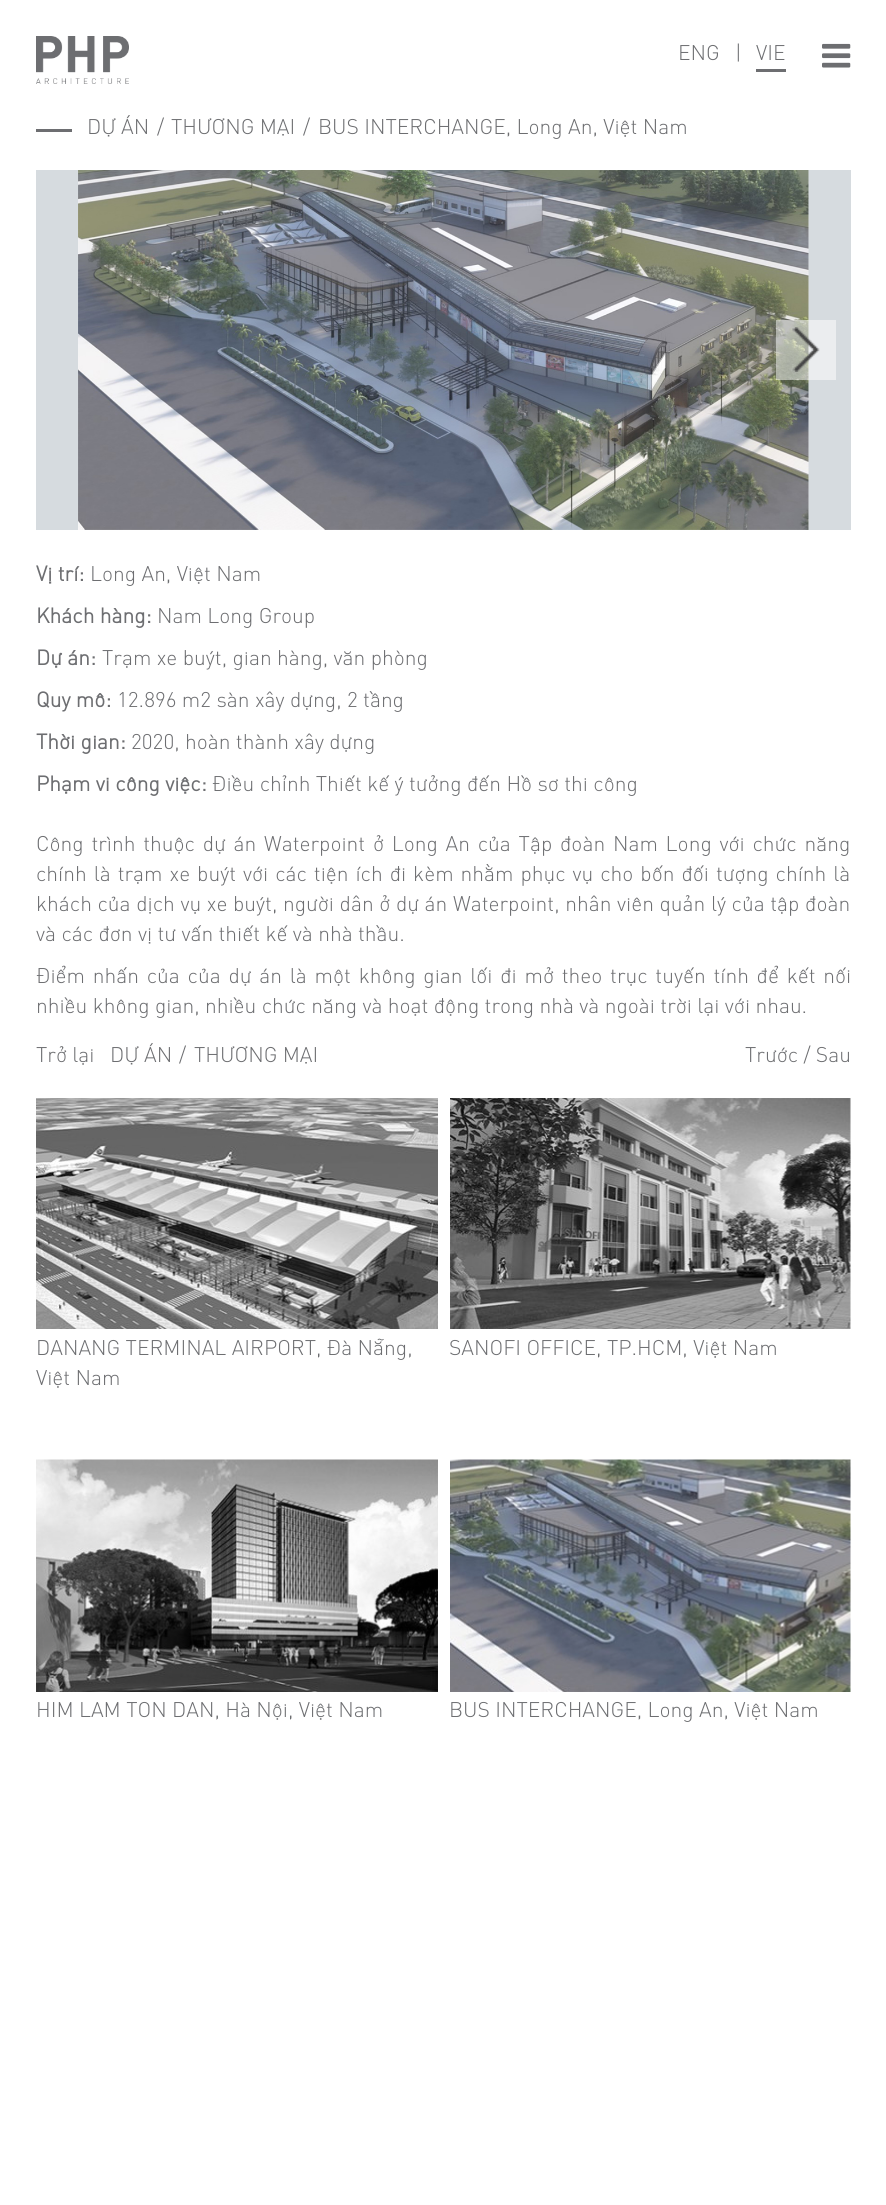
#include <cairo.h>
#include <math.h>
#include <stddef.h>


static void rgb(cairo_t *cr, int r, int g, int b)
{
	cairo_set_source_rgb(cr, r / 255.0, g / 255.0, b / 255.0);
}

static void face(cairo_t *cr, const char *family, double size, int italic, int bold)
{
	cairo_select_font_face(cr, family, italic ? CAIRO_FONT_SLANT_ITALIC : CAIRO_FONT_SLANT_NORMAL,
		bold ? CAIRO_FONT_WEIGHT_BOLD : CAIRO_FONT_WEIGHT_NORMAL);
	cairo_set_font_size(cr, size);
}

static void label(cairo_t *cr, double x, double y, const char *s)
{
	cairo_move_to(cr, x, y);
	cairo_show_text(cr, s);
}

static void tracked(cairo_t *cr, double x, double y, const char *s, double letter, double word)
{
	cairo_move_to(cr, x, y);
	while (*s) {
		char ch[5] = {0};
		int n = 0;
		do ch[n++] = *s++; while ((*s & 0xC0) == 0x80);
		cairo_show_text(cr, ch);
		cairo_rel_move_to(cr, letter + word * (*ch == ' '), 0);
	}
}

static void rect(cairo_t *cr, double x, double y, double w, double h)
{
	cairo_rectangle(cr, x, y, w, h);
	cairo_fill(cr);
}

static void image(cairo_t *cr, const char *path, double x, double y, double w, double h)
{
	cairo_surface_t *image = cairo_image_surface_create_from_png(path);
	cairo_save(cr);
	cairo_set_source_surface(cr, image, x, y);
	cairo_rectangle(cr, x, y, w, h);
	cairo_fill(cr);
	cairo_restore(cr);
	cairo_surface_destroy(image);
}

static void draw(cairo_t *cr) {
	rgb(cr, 255, 255, 255);
	cairo_paint(cr);
	face(cr, "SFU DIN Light", 21, 0, 0);
	rgb(cr, 109, 110, 113);
	label(cr, 678, 60, "ENG");
	label(cr, 735, 60, "|");
	label(cr, 756, 60, "VIE");
	rect(cr, 756, 69, 30, 3);
	image(cr, "image0.png", 36, 36, 93, 48);
	rect(cr, 36, 129, 36, 3);
	label(cr, 87, 134, "DỰ ÁN");
	label(cr, 157, 134, "/");
	label(cr, 171, 134, "THƯƠNG MẠI");
	label(cr, 303, 134, "/");
	label(cr, 318, 134, "BUS INTERCHANGE, Long An, Việt Nam");
	rgb(cr, 214, 219, 223);
	rect(cr, 36, 170, 815, 360);
	image(cr, "image1.png", 78, 170, 731, 360);
	cairo_set_source_rgba(cr, 1, 1, 1, 0.5);
	rect(cr, 776, 320, 60, 60);
	image(cr, "image2.png", 792, 327, 28, 45);
	face(cr, "SFU DIN", 21, 0, 1);
	rgb(cr, 109, 110, 113);
	label(cr, 36, 581, "Vị trí:");
	face(cr, "SFU DIN Light", 21, 0, 0);
	label(cr, 90, 581, "Long An, Việt Nam");
	face(cr, "SFU DIN", 21, 0, 1);
	label(cr, 36, 623, "Khách hàng:");
	face(cr, "SFU DIN Light", 21, 0, 0);
	label(cr, 157, 623, "Nam Long Group");
	face(cr, "SFU DIN", 21, 0, 1);
	label(cr, 36, 665, "Dự án:");
	face(cr, "SFU DIN Light", 21, 0, 0);
	label(cr, 102, 665, "Trạm xe buýt, gian hàng, văn phòng");
	face(cr, "SFU DIN", 21, 0, 1);
	label(cr, 36, 707, "Quy mô:");
	face(cr, "SFU DIN Light", 21, 0, 0);
	label(cr, 117, 707, "12.896 m2 sàn xây dựng, 2 tầng");
	face(cr, "SFU DIN", 21, 0, 1);
	label(cr, 36, 749, "Thời gian:");
	face(cr, "SFU DIN Light", 21, 0, 0);
	label(cr, 131, 749, "2020, hoàn thành xây dựng");
	face(cr, "SFU DIN", 21, 0, 1);
	label(cr, 36, 791, "Phạm vi công việc:");
	face(cr, "SFU DIN Light", 21, 0, 0);
	label(cr, 212, 791, "Điều chỉnh Thiết kế ý tưởng đến Hồ sơ thi công");
	tracked(cr, 36, 851, "Công trình thuộc dự án Waterpoint ở Long An của Tập đoàn Nam Long với chức năng", 0, 2.4);
	tracked(cr, 36, 881, "chính là trạm xe buýt với các tiện ích đi kèm nhằm phục vụ cho bốn đối tượng chính là", 0, 1.6);
	tracked(cr, 36, 911, "khách của dịch vụ xe buýt, người dân ở dự án Waterpoint, nhân viên quản lý của tập đoàn", 0, 0.25);
	label(cr, 36, 941, "và các đơn vị tư vấn thiết kế và nhà thầu.");
	tracked(cr, 36, 983, "Điểm nhấn của của dự án là một không gian lối đi mở theo trục tuyến tính để kết nối", 0, 2.4);
	label(cr, 36, 1013, "nhiều không gian, nhiều chức năng và hoạt động trong nhà và ngoài trời lại với nhau.");
	label(cr, 36, 1062, "Trở lại");
	label(cr, 110, 1062, "DỰ ÁN");
	label(cr, 179, 1062, "/");
	label(cr, 194, 1062, "THƯƠNG MẠI");
	label(cr, 745, 1062, "Trước / Sau");
	image(cr, "image3.png", 36, 1098, 402, 231);
	label(cr, 36, 1355, "DANANG TERMINAL AIRPORT, Đà Nẵng,");
	label(cr, 36, 1385, "Việt Nam");
	image(cr, "image4.png", 450, 1098, 401, 231);
	label(cr, 449, 1355, "SANOFI OFFICE, TP.HCM, Việt Nam");
	image(cr, "image5.png", 36, 1459, 402, 233);
	label(cr, 36, 1717, "HIM LAM TON DAN, Hà Nội, Việt Nam");
	image(cr, "image6.png", 450, 1459, 401, 233);
	label(cr, 449, 1717, "BUS INTERCHANGE, Long An, Việt Nam");
	image(cr, "image7.png", 822, 43, 29, 25);
}

int main(void) {
	cairo_surface_t *surface = cairo_image_surface_create(CAIRO_FORMAT_RGB24, 886, 2205);
	cairo_t *cr = cairo_create(surface);
	cairo_font_options_t *options = cairo_font_options_create();
	cairo_font_options_set_hint_metrics(options, CAIRO_HINT_METRICS_OFF);
	cairo_font_options_set_hint_style(options, CAIRO_HINT_STYLE_NONE);
	cairo_set_font_options(cr, options);
	cairo_set_miter_limit(cr, 4);
	draw(cr);
	cairo_surface_write_to_png(surface, "render.png");
	cairo_font_options_destroy(options);
	cairo_destroy(cr);
	cairo_surface_destroy(surface);
	return 0;
}
